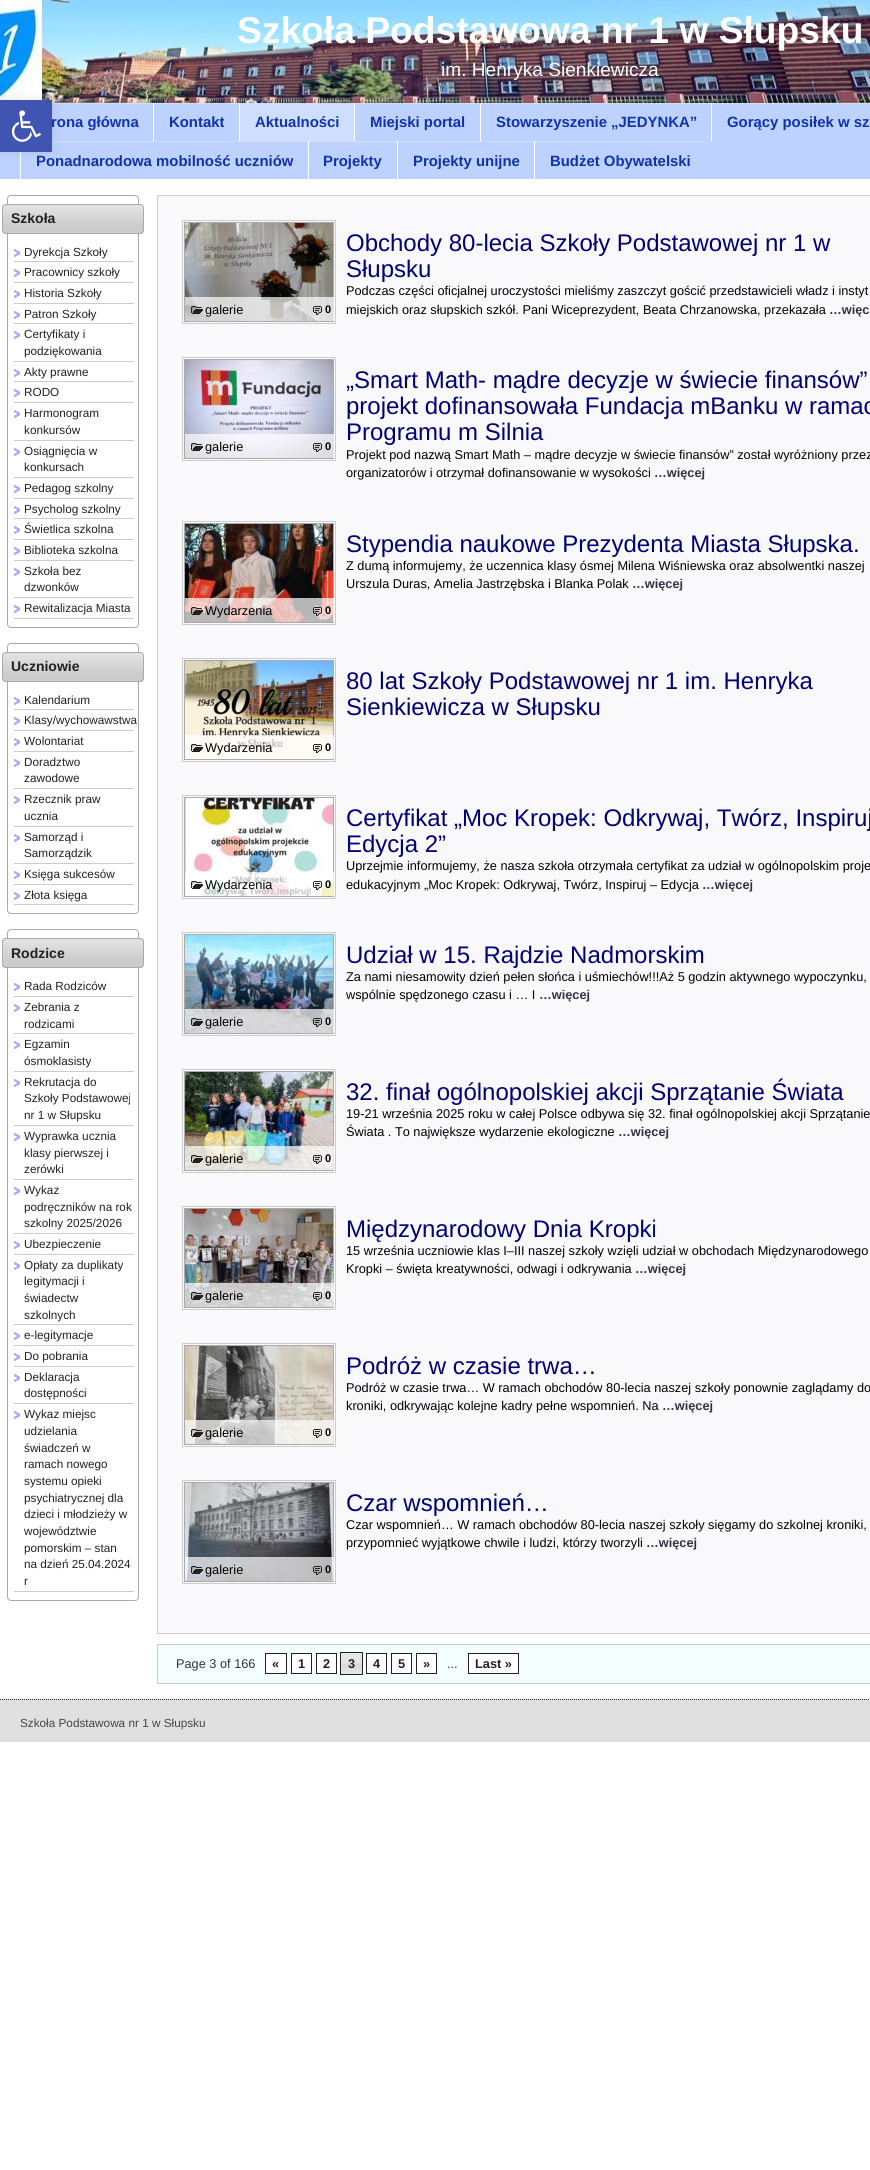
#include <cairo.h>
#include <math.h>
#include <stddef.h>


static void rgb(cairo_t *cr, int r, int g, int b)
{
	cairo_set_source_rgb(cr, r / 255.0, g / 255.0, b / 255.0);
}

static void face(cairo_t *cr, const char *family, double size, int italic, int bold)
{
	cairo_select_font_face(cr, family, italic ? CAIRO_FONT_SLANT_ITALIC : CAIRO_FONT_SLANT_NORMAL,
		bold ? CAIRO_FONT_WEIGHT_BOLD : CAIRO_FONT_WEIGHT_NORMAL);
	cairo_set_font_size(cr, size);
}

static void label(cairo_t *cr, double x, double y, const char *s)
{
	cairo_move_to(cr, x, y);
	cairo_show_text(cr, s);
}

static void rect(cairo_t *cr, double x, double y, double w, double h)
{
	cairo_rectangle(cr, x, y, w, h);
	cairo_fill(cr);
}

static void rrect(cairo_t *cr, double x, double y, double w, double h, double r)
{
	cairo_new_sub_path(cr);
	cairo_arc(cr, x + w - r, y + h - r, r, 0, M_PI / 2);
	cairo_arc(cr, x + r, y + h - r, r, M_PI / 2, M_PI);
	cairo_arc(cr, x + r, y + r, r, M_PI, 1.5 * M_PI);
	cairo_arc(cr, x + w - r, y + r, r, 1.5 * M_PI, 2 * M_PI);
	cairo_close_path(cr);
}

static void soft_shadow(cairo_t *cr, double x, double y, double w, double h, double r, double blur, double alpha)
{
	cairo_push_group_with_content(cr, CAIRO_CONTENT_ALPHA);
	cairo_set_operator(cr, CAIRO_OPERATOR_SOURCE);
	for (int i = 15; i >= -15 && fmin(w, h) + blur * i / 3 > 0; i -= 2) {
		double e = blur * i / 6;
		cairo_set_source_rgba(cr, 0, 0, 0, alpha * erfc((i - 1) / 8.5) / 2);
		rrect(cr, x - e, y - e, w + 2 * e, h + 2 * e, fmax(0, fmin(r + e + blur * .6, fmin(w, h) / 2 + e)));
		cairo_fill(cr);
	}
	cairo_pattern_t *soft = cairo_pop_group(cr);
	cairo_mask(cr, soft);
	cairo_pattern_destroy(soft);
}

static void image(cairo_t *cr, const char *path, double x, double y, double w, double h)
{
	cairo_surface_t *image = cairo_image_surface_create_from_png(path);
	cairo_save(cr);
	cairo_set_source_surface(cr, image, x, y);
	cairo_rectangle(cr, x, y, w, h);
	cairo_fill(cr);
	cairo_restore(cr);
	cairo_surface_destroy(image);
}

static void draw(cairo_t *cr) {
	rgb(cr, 255, 255, 255);
	cairo_paint(cr);
	image(cr, "image0.png", 0, 0, 870, 103);
	face(cr, "Liberation Sans", 37.2, 0, 1);
	rgb(cr, 255, 255, 255);
	label(cr, 237, 43, "Szkoła Podstawowa nr 1 w Słupsku");
	face(cr, "Liberation Sans", 19.1, 0, 0);
	rgb(cr, 238, 255, 255);
	label(cr, 441, 76, "im. Henryka Sienkiewicza");
	rgb(cr, 189, 210, 255);
	rect(cr, 0, 104, 870, 75);
	rgb(cr, 207, 222, 255);
	rect(cr, 52, 103, 187, 1);
	rect(cr, 52, 141, 653, 1);
	rgb(cr, 255, 255, 255);
	rect(cr, 20, 152, 1, 28);
	rgb(cr, 0, 0, 0);
	soft_shadow(cr, 0, 100, 52, 52, 0, 5, 0.1);
	face(cr, "Liberation Sans", 14.9, 0, 1);
	rgb(cr, 17, 51, 170);
	label(cr, 51, 127, "rona główna");
	rgb(cr, 64, 84, 178);
	rect(cr, 0, 100, 52, 52);
	image(cr, "image1.png", 11, 110, 30, 32);
	rgb(cr, 255, 255, 255);
	rect(cr, 153, 103, 1, 38);
	rgb(cr, 17, 51, 170);
	label(cr, 169, 127, "Kontakt");
	rgb(cr, 207, 222, 255);
	rect(cr, 240, 103, 114, 38);
	rgb(cr, 255, 255, 255);
	rect(cr, 239, 103, 1, 38);
	rgb(cr, 17, 51, 170);
	label(cr, 255, 127, "Aktualności");
	rgb(cr, 207, 222, 255);
	rect(cr, 354, 103, 516, 1);
	rgb(cr, 255, 255, 255);
	rect(cr, 354, 103, 1, 38);
	rgb(cr, 17, 51, 170);
	label(cr, 370, 127, "Miejski portal");
	rgb(cr, 255, 255, 255);
	rect(cr, 480, 103, 1, 38);
	rgb(cr, 17, 51, 170);
	label(cr, 496, 127, "Stowarzyszenie „JEDYNKA”");
	rgb(cr, 255, 255, 255);
	rect(cr, 711, 103, 1, 38);
	rgb(cr, 17, 51, 170);
	label(cr, 727, 127, "Gorący posiłek w sz");
	label(cr, 36, 166, "Ponadnarodowa mobilność uczniów");
	rgb(cr, 255, 255, 255);
	rect(cr, 308, 141, 1, 39);
	rgb(cr, 17, 51, 170);
	label(cr, 323, 166, "Projekty");
	rgb(cr, 255, 255, 255);
	rect(cr, 397, 141, 1, 39);
	rgb(cr, 17, 51, 170);
	label(cr, 413, 166, "Projekty unijne");
	rgb(cr, 255, 255, 255);
	rect(cr, 534, 141, 1, 39);
	rgb(cr, 17, 51, 170);
	label(cr, 550, 166, "Budżet Obywatelski");
	rrect(cr, 7.5, 195.5, 131, 432, 3.5);
	rgb(cr, 170, 170, 170);
	cairo_set_line_width(cr, 1);
	cairo_stroke(cr);
	image(cr, "image2.png", 2, 204, 142, 30);
	rrect(cr, 2.5, 204.5, 141, 29, 3.5);
	cairo_stroke(cr);
	face(cr, "Liberation Sans", 14, 0, 1);
	rgb(cr, 33, 33, 33);
	label(cr, 11, 223, "Szkoła");
	image(cr, "image3.png", 14, 249, 6, 8);
	rgb(cr, 204, 204, 204);
	rect(cr, 14, 261, 120, 1);
	face(cr, "Liberation Sans", 11.75, 0, 0);
	rgb(cr, 33, 33, 33);
	label(cr, 24, 256, "Dyrekcja Szkoły");
	image(cr, "image3.png", 14, 269, 6, 8);
	rgb(cr, 204, 204, 204);
	rect(cr, 14, 282, 120, 1);
	rgb(cr, 33, 33, 33);
	label(cr, 24, 276, "Pracownicy szkoły");
	image(cr, "image3.png", 14, 290, 6, 8);
	rgb(cr, 204, 204, 204);
	rect(cr, 14, 303, 120, 1);
	rgb(cr, 33, 33, 33);
	label(cr, 24, 297, "Historia Szkoły");
	image(cr, "image3.png", 14, 311, 6, 8);
	rgb(cr, 204, 204, 204);
	rect(cr, 14, 323, 120, 1);
	rgb(cr, 33, 33, 33);
	label(cr, 24, 318, "Patron Szkoły");
	image(cr, "image3.png", 14, 331, 6, 8);
	rgb(cr, 204, 204, 204);
	rect(cr, 14, 361, 120, 1);
	rgb(cr, 33, 33, 33);
	label(cr, 24, 338, "Certyfikaty i");
	label(cr, 24, 355, "podziękowania");
	image(cr, "image3.png", 14, 369, 6, 8);
	rgb(cr, 204, 204, 204);
	rect(cr, 14, 381, 120, 1);
	rgb(cr, 33, 33, 33);
	label(cr, 24, 376, "Akty prawne");
	image(cr, "image3.png", 14, 389, 6, 8);
	rgb(cr, 204, 204, 204);
	rect(cr, 14, 402, 120, 1);
	rgb(cr, 33, 33, 33);
	label(cr, 24, 396, "RODO");
	image(cr, "image3.png", 14, 410, 6, 8);
	rgb(cr, 204, 204, 204);
	rect(cr, 14, 440, 120, 1);
	rgb(cr, 33, 33, 33);
	label(cr, 24, 417, "Harmonogram");
	label(cr, 24, 434, "konkursów");
	image(cr, "image3.png", 14, 448, 6, 8);
	rgb(cr, 204, 204, 204);
	rect(cr, 14, 477, 120, 1);
	rgb(cr, 33, 33, 33);
	label(cr, 24, 455, "Osiągnięcia w");
	label(cr, 24, 471, "konkursach");
	image(cr, "image3.png", 14, 485, 6, 8);
	rgb(cr, 204, 204, 204);
	rect(cr, 14, 498, 120, 1);
	rgb(cr, 33, 33, 33);
	label(cr, 24, 492, "Pedagog szkolny");
	image(cr, "image3.png", 14, 506, 6, 8);
	rgb(cr, 204, 204, 204);
	rect(cr, 14, 518, 120, 1);
	rgb(cr, 33, 33, 33);
	label(cr, 24, 513, "Psycholog szkolny");
	image(cr, "image3.png", 14, 526, 6, 8);
	rgb(cr, 204, 204, 204);
	rect(cr, 14, 539, 120, 1);
	rgb(cr, 33, 33, 33);
	label(cr, 24, 533, "Świetlica szkolna");
	image(cr, "image3.png", 14, 547, 6, 8);
	rgb(cr, 204, 204, 204);
	rect(cr, 14, 560, 120, 1);
	rgb(cr, 33, 33, 33);
	label(cr, 24, 554, "Biblioteka szkolna");
	image(cr, "image3.png", 14, 568, 6, 8);
	rgb(cr, 204, 204, 204);
	rect(cr, 14, 597, 120, 1);
	rgb(cr, 33, 33, 33);
	label(cr, 24, 575, "Szkoła bez");
	label(cr, 24, 591, "dzwonków");
	image(cr, "image3.png", 14, 605, 6, 8);
	rgb(cr, 204, 204, 204);
	rect(cr, 14, 618, 120, 1);
	rgb(cr, 33, 33, 33);
	label(cr, 24, 612, "Rewitalizacja Miasta");
	rrect(cr, 7.5, 643.5, 131, 270, 3.5);
	rgb(cr, 170, 170, 170);
	cairo_stroke(cr);
	image(cr, "image2.png", 2, 652, 142, 30);
	rrect(cr, 2.5, 652.5, 141, 29, 3.5);
	cairo_stroke(cr);
	face(cr, "Liberation Sans", 14, 0, 1);
	rgb(cr, 33, 33, 33);
	label(cr, 11, 671, "Uczniowie");
	image(cr, "image3.png", 14, 697, 6, 8);
	rgb(cr, 204, 204, 204);
	rect(cr, 14, 709, 120, 1);
	face(cr, "Liberation Sans", 11.75, 0, 0);
	rgb(cr, 33, 33, 33);
	label(cr, 24, 704, "Kalendarium");
	image(cr, "image3.png", 14, 717, 6, 8);
	rgb(cr, 204, 204, 204);
	rect(cr, 14, 730, 120, 1);
	rgb(cr, 33, 33, 33);
	label(cr, 24, 724, "Klasy/wychowawstwa");
	image(cr, "image3.png", 14, 738, 6, 8);
	rgb(cr, 204, 204, 204);
	rect(cr, 14, 751, 120, 1);
	rgb(cr, 33, 33, 33);
	label(cr, 24, 745, "Wolontariat");
	image(cr, "image3.png", 14, 759, 6, 8);
	rgb(cr, 204, 204, 204);
	rect(cr, 14, 788, 120, 1);
	rgb(cr, 33, 33, 33);
	label(cr, 24, 766, "Doradztwo");
	label(cr, 24, 782, "zawodowe");
	image(cr, "image3.png", 14, 796, 6, 8);
	rgb(cr, 204, 204, 204);
	rect(cr, 14, 826, 120, 1);
	rgb(cr, 33, 33, 33);
	label(cr, 24, 803, "Rzecznik praw");
	label(cr, 24, 820, "ucznia");
	image(cr, "image3.png", 14, 834, 6, 8);
	rgb(cr, 204, 204, 204);
	rect(cr, 14, 863, 120, 1);
	rgb(cr, 33, 33, 33);
	label(cr, 24, 841, "Samorząd i");
	label(cr, 24, 857, "Samorządzik");
	image(cr, "image3.png", 14, 871, 6, 8);
	rgb(cr, 204, 204, 204);
	rect(cr, 14, 884, 120, 1);
	rgb(cr, 33, 33, 33);
	label(cr, 24, 878, "Księga sukcesów");
	image(cr, "image3.png", 14, 892, 6, 8);
	rgb(cr, 204, 204, 204);
	rect(cr, 14, 904, 120, 1);
	rgb(cr, 33, 33, 33);
	label(cr, 24, 899, "Złota księga");
	rrect(cr, 7.5, 929.5, 131, 671, 3.5);
	rgb(cr, 170, 170, 170);
	cairo_stroke(cr);
	image(cr, "image2.png", 2, 938, 142, 30);
	rrect(cr, 2.5, 938.5, 141, 29, 3.5);
	cairo_stroke(cr);
	face(cr, "Liberation Sans", 14, 0, 1);
	rgb(cr, 33, 33, 33);
	label(cr, 11, 958, "Rodzice");
	image(cr, "image3.png", 14, 983, 6, 8);
	rgb(cr, 204, 204, 204);
	rect(cr, 14, 996, 120, 1);
	face(cr, "Liberation Sans", 11.75, 0, 0);
	rgb(cr, 33, 33, 33);
	label(cr, 24, 990, "Rada Rodziców");
	image(cr, "image3.png", 14, 1004, 6, 8);
	rgb(cr, 204, 204, 204);
	rect(cr, 14, 1033, 120, 1);
	rgb(cr, 33, 33, 33);
	label(cr, 24, 1011, "Zebrania z");
	label(cr, 24, 1028, "rodzicami");
	image(cr, "image3.png", 14, 1041, 6, 8);
	rgb(cr, 204, 204, 204);
	rect(cr, 14, 1071, 120, 1);
	rgb(cr, 33, 33, 33);
	label(cr, 24, 1048, "Egzamin");
	label(cr, 24, 1065, "ósmoklasisty");
	image(cr, "image3.png", 14, 1079, 6, 8);
	rgb(cr, 204, 204, 204);
	rect(cr, 14, 1125, 120, 1);
	rgb(cr, 33, 33, 33);
	label(cr, 24, 1086, "Rekrutacja do");
	label(cr, 24, 1102, "Szkoły Podstawowej");
	label(cr, 24, 1119, "nr 1 w Słupsku");
	image(cr, "image3.png", 14, 1133, 6, 8);
	rgb(cr, 204, 204, 204);
	rect(cr, 14, 1179, 120, 1);
	rgb(cr, 33, 33, 33);
	label(cr, 24, 1140, "Wyprawka ucznia");
	label(cr, 24, 1157, "klasy pierwszej i");
	label(cr, 24, 1173, "zerówki");
	image(cr, "image3.png", 14, 1187, 6, 8);
	rgb(cr, 204, 204, 204);
	rect(cr, 14, 1233, 120, 1);
	rgb(cr, 33, 33, 33);
	label(cr, 24, 1194, "Wykaz");
	label(cr, 24, 1211, "podręczników na rok");
	label(cr, 24, 1227, "szkolny 2025/2026");
	image(cr, "image3.png", 14, 1241, 6, 8);
	rgb(cr, 204, 204, 204);
	rect(cr, 14, 1254, 120, 1);
	rgb(cr, 33, 33, 33);
	label(cr, 24, 1248, "Ubezpieczenie");
	image(cr, "image3.png", 14, 1262, 6, 8);
	rgb(cr, 204, 204, 204);
	rect(cr, 14, 1324, 120, 1);
	rgb(cr, 33, 33, 33);
	label(cr, 24, 1269, "Opłaty za duplikaty");
	label(cr, 24, 1285, "legitymacji i");
	label(cr, 24, 1302, "świadectw");
	label(cr, 24, 1319, "szkolnych");
	image(cr, "image3.png", 14, 1332, 6, 8);
	rgb(cr, 204, 204, 204);
	rect(cr, 14, 1345, 120, 1);
	rgb(cr, 33, 33, 33);
	label(cr, 24, 1339, "e-legitymacje");
	image(cr, "image3.png", 14, 1353, 6, 8);
	rgb(cr, 204, 204, 204);
	rect(cr, 14, 1366, 120, 1);
	rgb(cr, 33, 33, 33);
	label(cr, 24, 1360, "Do pobrania");
	image(cr, "image3.png", 14, 1374, 6, 8);
	rgb(cr, 204, 204, 204);
	rect(cr, 14, 1403, 120, 1);
	rgb(cr, 33, 33, 33);
	label(cr, 24, 1381, "Deklaracja");
	label(cr, 24, 1397, "dostępności");
	image(cr, "image3.png", 14, 1411, 6, 8);
	rgb(cr, 204, 204, 204);
	rect(cr, 14, 1591, 120, 1);
	rgb(cr, 33, 33, 33);
	label(cr, 24, 1418, "Wykaz miejsc");
	label(cr, 24, 1435, "udzielania");
	label(cr, 24, 1452, "świadczeń w");
	label(cr, 24, 1468, "ramach nowego");
	label(cr, 24, 1485, "systemu opieki");
	label(cr, 24, 1502, "psychiatrycznej dla");
	label(cr, 24, 1518, "dzieci i młodzieży w");
	label(cr, 24, 1535, "województwie");
	label(cr, 24, 1552, "pomorskim – stan");
	label(cr, 24, 1568, "na dzień 25.04.2024");
	label(cr, 24, 1585, "r");
	rgb(cr, 249, 249, 252);
	cairo_rectangle(cr, 157.5, 195.5, 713, 1438);
	cairo_fill_preserve(cr);
	rgb(cr, 204, 204, 204);
	cairo_stroke(cr);
	cairo_rectangle(cr, 182.5, 220.5, 153, 103);
	cairo_stroke(cr);
	cairo_rectangle(cr, 184.5, 222.5, 149, 99);
	rgb(cr, 170, 170, 170);
	cairo_stroke(cr);
	image(cr, "image4.png", 185, 223, 148, 98);
	cairo_set_source_rgba(cr, 1, 1, 1, 0.7);
	rect(cr, 185, 297, 150, 24);
	image(cr, "image5.png", 191, 306, 12, 8);
	face(cr, "Liberation Sans", 12.75, 0, 0);
	rgb(cr, 0, 0, 0);
	label(cr, 205, 314, "galerie");
	image(cr, "image6.png", 313, 306, 9, 9);
	face(cr, "Liberation Sans", 11, 0, 1);
	label(cr, 325, 313, "0");
	face(cr, "Liberation Sans", 24, 0, 0);
	rgb(cr, 0, 0, 119);
	label(cr, 346, 251, "Obchody 80-lecia Szkoły Podstawowej nr 1 w");
	label(cr, 346, 277, "Słupsku");
	face(cr, "Liberation Sans", 12.75, 0, 0);
	rgb(cr, 0, 0, 0);
	label(cr, 346, 295, "Podczas części oficjalnej uroczystości mieliśmy zaszczyt gościć przedstawicieli władz i instyt");
	label(cr, 346, 314, "miejskich oraz słupskich szkół. Pani Wiceprezydent, Beata Chrzanowska, przekazała");
	face(cr, "Liberation Sans", 12.75, 0, 1);
	rgb(cr, 51, 51, 68);
	label(cr, 829, 314, "…więc");
	cairo_rectangle(cr, 182.5, 357.5, 153, 103);
	rgb(cr, 204, 204, 204);
	cairo_stroke(cr);
	cairo_rectangle(cr, 184.5, 359.5, 149, 99);
	rgb(cr, 170, 170, 170);
	cairo_stroke(cr);
	image(cr, "image7.png", 185, 360, 148, 98);
	cairo_set_source_rgba(cr, 1, 1, 1, 0.7);
	rect(cr, 185, 434, 150, 24);
	image(cr, "image8.png", 191, 443, 12, 8);
	face(cr, "Liberation Sans", 12.75, 0, 0);
	rgb(cr, 0, 0, 0);
	label(cr, 205, 451, "galerie");
	image(cr, "image9.png", 313, 443, 9, 9);
	face(cr, "Liberation Sans", 11, 0, 1);
	label(cr, 325, 450, "0");
	face(cr, "Liberation Sans", 24, 0, 0);
	rgb(cr, 0, 0, 119);
	label(cr, 346, 388, "„Smart Math- mądre decyzje w świecie finansów”");
	label(cr, 346, 414, "projekt dofinansowała Fundacja mBanku w ramac");
	label(cr, 346, 440, "Programu m Silnia");
	face(cr, "Liberation Sans", 12.75, 0, 0);
	rgb(cr, 0, 0, 0);
	label(cr, 346, 459, "Projekt pod nazwą Smart Math – mądre decyzje w świecie finansów” został wyróżniony przez");
	label(cr, 346, 477, "organizatorów i otrzymał dofinansowanie w wysokości");
	face(cr, "Liberation Sans", 12.75, 0, 1);
	rgb(cr, 51, 51, 68);
	label(cr, 654, 477, "…więcej");
	face(cr, "Liberation Sans", 24, 0, 0);
	rgb(cr, 0, 0, 119);
	label(cr, 346, 552, "Stypendia naukowe Prezydenta Miasta Słupska.");
	face(cr, "Liberation Sans", 12.75, 0, 0);
	rgb(cr, 0, 0, 0);
	label(cr, 346, 570, "Z dumą informujemy, że uczennica klasy ósmej Milena Wiśniewska oraz absolwentki naszej");
	label(cr, 346, 588, "Urszula Duras, Amelia Jastrzębska i Blanka Polak");
	face(cr, "Liberation Sans", 12.75, 0, 1);
	rgb(cr, 51, 51, 68);
	label(cr, 632, 588, "…więcej");
	cairo_rectangle(cr, 182.5, 521.5, 153, 103);
	rgb(cr, 204, 204, 204);
	cairo_stroke(cr);
	cairo_rectangle(cr, 184.5, 523.5, 149, 99);
	rgb(cr, 170, 170, 170);
	cairo_stroke(cr);
	image(cr, "image10.png", 185, 524, 148, 98);
	cairo_set_source_rgba(cr, 1, 1, 1, 0.7);
	rect(cr, 185, 598, 150, 24);
	image(cr, "image11.png", 191, 607, 12, 8);
	face(cr, "Liberation Sans", 12.75, 0, 0);
	rgb(cr, 0, 0, 0);
	label(cr, 205, 615, "Wydarzenia");
	image(cr, "image12.png", 313, 607, 9, 9);
	face(cr, "Liberation Sans", 11, 0, 1);
	label(cr, 325, 614, "0");
	face(cr, "Liberation Sans", 24, 0, 0);
	rgb(cr, 0, 0, 119);
	label(cr, 346, 689, "80 lat Szkoły Podstawowej nr 1 im. Henryka");
	label(cr, 346, 715, "Sienkiewicza w Słupsku");
	cairo_rectangle(cr, 182.5, 658.5, 153, 103);
	rgb(cr, 204, 204, 204);
	cairo_stroke(cr);
	cairo_rectangle(cr, 184.5, 660.5, 149, 99);
	rgb(cr, 170, 170, 170);
	cairo_stroke(cr);
	image(cr, "image13.png", 185, 661, 148, 98);
	cairo_set_source_rgba(cr, 1, 1, 1, 0.7);
	rect(cr, 185, 735, 150, 24);
	image(cr, "image14.png", 191, 744, 12, 8);
	face(cr, "Liberation Sans", 12.75, 0, 0);
	rgb(cr, 0, 0, 0);
	label(cr, 205, 752, "Wydarzenia");
	image(cr, "image15.png", 313, 744, 9, 9);
	face(cr, "Liberation Sans", 11, 0, 1);
	label(cr, 325, 751, "0");
	cairo_rectangle(cr, 182.5, 795.5, 153, 103);
	rgb(cr, 204, 204, 204);
	cairo_stroke(cr);
	cairo_rectangle(cr, 184.5, 797.5, 149, 99);
	rgb(cr, 170, 170, 170);
	cairo_stroke(cr);
	image(cr, "image16.png", 185, 798, 148, 98);
	cairo_set_source_rgba(cr, 1, 1, 1, 0.7);
	rect(cr, 185, 872, 150, 24);
	image(cr, "image17.png", 191, 881, 12, 8);
	face(cr, "Liberation Sans", 12.75, 0, 0);
	rgb(cr, 0, 0, 0);
	label(cr, 205, 889, "Wydarzenia");
	image(cr, "image18.png", 313, 881, 9, 9);
	face(cr, "Liberation Sans", 11, 0, 1);
	label(cr, 325, 888, "0");
	face(cr, "Liberation Sans", 24, 0, 0);
	rgb(cr, 0, 0, 119);
	label(cr, 346, 826, "Certyfikat „Moc Kropek: Odkrywaj, Twórz, Inspiruj");
	label(cr, 346, 852, "Edycja 2”");
	face(cr, "Liberation Sans", 12.75, 0, 0);
	rgb(cr, 0, 0, 0);
	label(cr, 346, 870, "Uprzejmie informujemy, że nasza szkoła otrzymała certyfikat za udział w ogólnopolskim proje");
	label(cr, 346, 889, "edukacyjnym „Moc Kropek: Odkrywaj, Twórz, Inspiruj – Edycja");
	face(cr, "Liberation Sans", 12.75, 0, 1);
	rgb(cr, 51, 51, 68);
	label(cr, 702, 889, "…więcej");
	face(cr, "Liberation Sans", 24, 0, 0);
	rgb(cr, 0, 0, 119);
	label(cr, 346, 963, "Udział w 15. Rajdzie Nadmorskim");
	face(cr, "Liberation Sans", 12.75, 0, 0);
	rgb(cr, 0, 0, 0);
	label(cr, 346, 981, "Za nami niesamowity dzień pełen słońca i uśmiechów!!!Aż 5 godzin aktywnego wypoczynku,");
	label(cr, 346, 999, "wspólnie spędzonego czasu i … I");
	face(cr, "Liberation Sans", 12.75, 0, 1);
	rgb(cr, 51, 51, 68);
	label(cr, 539, 999, "…więcej");
	cairo_rectangle(cr, 182.5, 932.5, 153, 103);
	rgb(cr, 204, 204, 204);
	cairo_stroke(cr);
	cairo_rectangle(cr, 184.5, 934.5, 149, 99);
	rgb(cr, 170, 170, 170);
	cairo_stroke(cr);
	image(cr, "image19.png", 185, 935, 148, 98);
	cairo_set_source_rgba(cr, 1, 1, 1, 0.7);
	rect(cr, 185, 1009, 150, 24);
	image(cr, "image20.png", 191, 1018, 12, 8);
	face(cr, "Liberation Sans", 12.75, 0, 0);
	rgb(cr, 0, 0, 0);
	label(cr, 205, 1026, "galerie");
	image(cr, "image21.png", 313, 1018, 9, 9);
	face(cr, "Liberation Sans", 11, 0, 1);
	label(cr, 325, 1025, "0");
	face(cr, "Liberation Sans", 24, 0, 0);
	rgb(cr, 0, 0, 119);
	label(cr, 346, 1100, "32. finał ogólnopolskiej akcji Sprzątanie Świata");
	face(cr, "Liberation Sans", 12.75, 0, 0);
	rgb(cr, 0, 0, 0);
	label(cr, 346, 1118, "19-21 września 2025 roku w całej Polsce odbywa się 32. finał ogólnopolskiej akcji Sprzątanie");
	label(cr, 346, 1136, "Świata . To największe wydarzenie ekologiczne");
	face(cr, "Liberation Sans", 12.75, 0, 1);
	rgb(cr, 51, 51, 68);
	label(cr, 618, 1136, "…więcej");
	cairo_rectangle(cr, 182.5, 1069.5, 153, 103);
	rgb(cr, 204, 204, 204);
	cairo_stroke(cr);
	cairo_rectangle(cr, 184.5, 1071.5, 149, 99);
	rgb(cr, 170, 170, 170);
	cairo_stroke(cr);
	image(cr, "image22.png", 185, 1072, 148, 98);
	cairo_set_source_rgba(cr, 1, 1, 1, 0.7);
	rect(cr, 185, 1146, 150, 24);
	image(cr, "image23.png", 191, 1155, 12, 8);
	face(cr, "Liberation Sans", 12.75, 0, 0);
	rgb(cr, 0, 0, 0);
	label(cr, 205, 1163, "galerie");
	image(cr, "image24.png", 313, 1155, 9, 9);
	face(cr, "Liberation Sans", 11, 0, 1);
	label(cr, 325, 1162, "0");
	face(cr, "Liberation Sans", 24, 0, 0);
	rgb(cr, 0, 0, 119);
	label(cr, 346, 1237, "Międzynarodowy Dnia Kropki");
	face(cr, "Liberation Sans", 12.75, 0, 0);
	rgb(cr, 0, 0, 0);
	label(cr, 346, 1255, "15 września uczniowie klas I–III naszej szkoły wzięli udział w obchodach Międzynarodowego");
	label(cr, 346, 1273, "Kropki – święta kreatywności, odwagi i odkrywania");
	face(cr, "Liberation Sans", 12.75, 0, 1);
	rgb(cr, 51, 51, 68);
	label(cr, 635, 1273, "…więcej");
	cairo_rectangle(cr, 182.5, 1206.5, 153, 103);
	rgb(cr, 204, 204, 204);
	cairo_stroke(cr);
	cairo_rectangle(cr, 184.5, 1208.5, 149, 99);
	rgb(cr, 170, 170, 170);
	cairo_stroke(cr);
	image(cr, "image25.png", 185, 1209, 148, 98);
	cairo_set_source_rgba(cr, 1, 1, 1, 0.7);
	rect(cr, 185, 1283, 150, 24);
	image(cr, "image26.png", 191, 1292, 12, 8);
	face(cr, "Liberation Sans", 12.75, 0, 0);
	rgb(cr, 0, 0, 0);
	label(cr, 205, 1300, "galerie");
	image(cr, "image27.png", 313, 1292, 9, 9);
	face(cr, "Liberation Sans", 11, 0, 1);
	label(cr, 325, 1299, "0");
	face(cr, "Liberation Sans", 24, 0, 0);
	rgb(cr, 0, 0, 119);
	label(cr, 346, 1374, "Podróż w czasie trwa…");
	face(cr, "Liberation Sans", 12.75, 0, 0);
	rgb(cr, 0, 0, 0);
	label(cr, 346, 1392, "Podróż w czasie trwa… W ramach obchodów 80-lecia naszej szkoły ponownie zaglądamy do");
	label(cr, 346, 1410, "kroniki, odkrywając kolejne kadry pełne wspomnień. Na");
	face(cr, "Liberation Sans", 12.75, 0, 1);
	rgb(cr, 51, 51, 68);
	label(cr, 662, 1410, "…więcej");
	cairo_rectangle(cr, 182.5, 1343.5, 153, 103);
	rgb(cr, 204, 204, 204);
	cairo_stroke(cr);
	cairo_rectangle(cr, 184.5, 1345.5, 149, 99);
	rgb(cr, 170, 170, 170);
	cairo_stroke(cr);
	image(cr, "image28.png", 185, 1346, 148, 98);
	cairo_set_source_rgba(cr, 1, 1, 1, 0.7);
	rect(cr, 185, 1420, 150, 24);
	image(cr, "image29.png", 191, 1429, 12, 8);
	face(cr, "Liberation Sans", 12.75, 0, 0);
	rgb(cr, 0, 0, 0);
	label(cr, 205, 1437, "galerie");
	image(cr, "image30.png", 313, 1429, 9, 9);
	face(cr, "Liberation Sans", 11, 0, 1);
	label(cr, 325, 1436, "0");
	face(cr, "Liberation Sans", 24, 0, 0);
	rgb(cr, 0, 0, 119);
	label(cr, 346, 1511, "Czar wspomnień…");
	face(cr, "Liberation Sans", 12.75, 0, 0);
	rgb(cr, 0, 0, 0);
	label(cr, 346, 1529, "Czar wspomnień… W ramach obchodów 80-lecia naszej szkoły sięgamy do szkolnej kroniki,");
	label(cr, 346, 1547, "przypomnieć wyjątkowe chwile i ludzi, którzy tworzyli");
	face(cr, "Liberation Sans", 12.75, 0, 1);
	rgb(cr, 51, 51, 68);
	label(cr, 646, 1547, "…więcej");
	cairo_rectangle(cr, 182.5, 1480.5, 153, 103);
	rgb(cr, 204, 204, 204);
	cairo_stroke(cr);
	cairo_rectangle(cr, 184.5, 1482.5, 149, 99);
	rgb(cr, 170, 170, 170);
	cairo_stroke(cr);
	image(cr, "image31.png", 185, 1483, 148, 98);
	cairo_set_source_rgba(cr, 1, 1, 1, 0.7);
	rect(cr, 185, 1557, 150, 24);
	image(cr, "image32.png", 191, 1566, 12, 8);
	face(cr, "Liberation Sans", 12.75, 0, 0);
	rgb(cr, 0, 0, 0);
	label(cr, 205, 1574, "galerie");
	image(cr, "image33.png", 313, 1566, 9, 9);
	face(cr, "Liberation Sans", 11, 0, 1);
	label(cr, 325, 1573, "0");
	rgb(cr, 245, 254, 255);
	cairo_rectangle(cr, 157.5, 1644.5, 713, 39);
	cairo_fill_preserve(cr);
	rgb(cr, 204, 204, 204);
	cairo_stroke(cr);
	face(cr, "Liberation Sans", 12.75, 0, 0);
	rgb(cr, 51, 51, 51);
	label(cr, 176, 1668, "Page 3 of 166");
	rgb(cr, 255, 255, 255);
	cairo_rectangle(cr, 291.5, 1653.5, 20, 20);
	cairo_fill_preserve(cr);
	rgb(cr, 33, 33, 33);
	cairo_stroke(cr);
	face(cr, "Liberation Sans", 12.75, 0, 1);
	label(cr, 298, 1668, "1");
	rgb(cr, 255, 255, 255);
	cairo_rectangle(cr, 316.5, 1653.5, 20, 20);
	cairo_fill_preserve(cr);
	rgb(cr, 33, 33, 33);
	cairo_stroke(cr);
	label(cr, 323, 1668, "2");
	image(cr, "image34.png", 341, 1653, 21, 21);
	rgb(cr, 255, 255, 255);
	cairo_rectangle(cr, 265.5, 1653.5, 21, 20);
	cairo_fill_preserve(cr);
	rgb(cr, 33, 33, 33);
	cairo_stroke(cr);
	label(cr, 272, 1668, "«");
	cairo_rectangle(cr, 340.5, 1652.5, 22, 22);
	cairo_stroke(cr);
	label(cr, 348, 1668, "3");
	rgb(cr, 255, 255, 255);
	cairo_rectangle(cr, 366.5, 1653.5, 20, 20);
	cairo_fill_preserve(cr);
	rgb(cr, 33, 33, 33);
	cairo_stroke(cr);
	label(cr, 373, 1668, "4");
	rgb(cr, 255, 255, 255);
	cairo_rectangle(cr, 391.5, 1653.5, 20, 20);
	cairo_fill_preserve(cr);
	rgb(cr, 33, 33, 33);
	cairo_stroke(cr);
	label(cr, 398, 1668, "5");
	rgb(cr, 255, 255, 255);
	cairo_rectangle(cr, 416.5, 1653.5, 20, 20);
	cairo_fill_preserve(cr);
	rgb(cr, 33, 33, 33);
	cairo_stroke(cr);
	label(cr, 423, 1668, "»");
	face(cr, "Liberation Sans", 12.75, 0, 0);
	rgb(cr, 51, 51, 51);
	label(cr, 447, 1668, "...");
	rgb(cr, 255, 255, 255);
	cairo_rectangle(cr, 468.5, 1653.5, 50, 20);
	cairo_fill_preserve(cr);
	rgb(cr, 33, 33, 33);
	cairo_stroke(cr);
	face(cr, "Liberation Sans", 12.75, 0, 1);
	label(cr, 475, 1668, "Last »");
	rgb(cr, 224, 224, 224);
	rect(cr, 0, 1699, 870, 43);
	cairo_new_path(cr);
	cairo_move_to(cr, 0, 1699.5);
	cairo_line_to(cr, 870, 1699.5);
	rgb(cr, 34, 34, 34);
	cairo_set_dash(cr, (double[]){1, 1}, 2, 0);
	cairo_stroke(cr);
	face(cr, "Liberation Sans", 11.75, 0, 0);
	rgb(cr, 68, 68, 68);
	label(cr, 20, 1727, "Szkoła Podstawowa nr 1 w Słupsku");
}

int main(void) {
	cairo_surface_t *surface = cairo_image_surface_create(CAIRO_FORMAT_RGB24, 870, 2170);
	cairo_t *cr = cairo_create(surface);
	cairo_font_options_t *options = cairo_font_options_create();
	cairo_font_options_set_hint_metrics(options, CAIRO_HINT_METRICS_OFF);
	cairo_font_options_set_hint_style(options, CAIRO_HINT_STYLE_NONE);
	cairo_set_font_options(cr, options);
	cairo_set_miter_limit(cr, 4);
	draw(cr);
	cairo_surface_write_to_png(surface, "render.png");
	cairo_font_options_destroy(options);
	cairo_destroy(cr);
	cairo_surface_destroy(surface);
	return 0;
}
